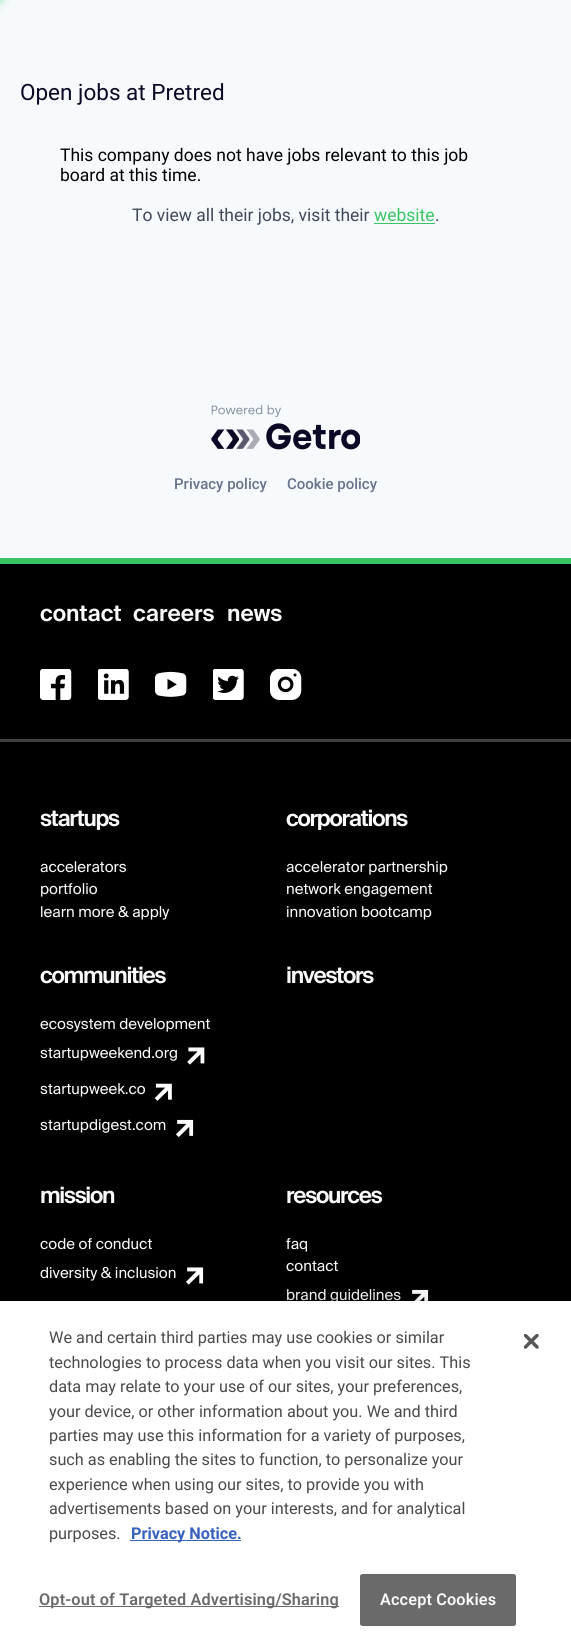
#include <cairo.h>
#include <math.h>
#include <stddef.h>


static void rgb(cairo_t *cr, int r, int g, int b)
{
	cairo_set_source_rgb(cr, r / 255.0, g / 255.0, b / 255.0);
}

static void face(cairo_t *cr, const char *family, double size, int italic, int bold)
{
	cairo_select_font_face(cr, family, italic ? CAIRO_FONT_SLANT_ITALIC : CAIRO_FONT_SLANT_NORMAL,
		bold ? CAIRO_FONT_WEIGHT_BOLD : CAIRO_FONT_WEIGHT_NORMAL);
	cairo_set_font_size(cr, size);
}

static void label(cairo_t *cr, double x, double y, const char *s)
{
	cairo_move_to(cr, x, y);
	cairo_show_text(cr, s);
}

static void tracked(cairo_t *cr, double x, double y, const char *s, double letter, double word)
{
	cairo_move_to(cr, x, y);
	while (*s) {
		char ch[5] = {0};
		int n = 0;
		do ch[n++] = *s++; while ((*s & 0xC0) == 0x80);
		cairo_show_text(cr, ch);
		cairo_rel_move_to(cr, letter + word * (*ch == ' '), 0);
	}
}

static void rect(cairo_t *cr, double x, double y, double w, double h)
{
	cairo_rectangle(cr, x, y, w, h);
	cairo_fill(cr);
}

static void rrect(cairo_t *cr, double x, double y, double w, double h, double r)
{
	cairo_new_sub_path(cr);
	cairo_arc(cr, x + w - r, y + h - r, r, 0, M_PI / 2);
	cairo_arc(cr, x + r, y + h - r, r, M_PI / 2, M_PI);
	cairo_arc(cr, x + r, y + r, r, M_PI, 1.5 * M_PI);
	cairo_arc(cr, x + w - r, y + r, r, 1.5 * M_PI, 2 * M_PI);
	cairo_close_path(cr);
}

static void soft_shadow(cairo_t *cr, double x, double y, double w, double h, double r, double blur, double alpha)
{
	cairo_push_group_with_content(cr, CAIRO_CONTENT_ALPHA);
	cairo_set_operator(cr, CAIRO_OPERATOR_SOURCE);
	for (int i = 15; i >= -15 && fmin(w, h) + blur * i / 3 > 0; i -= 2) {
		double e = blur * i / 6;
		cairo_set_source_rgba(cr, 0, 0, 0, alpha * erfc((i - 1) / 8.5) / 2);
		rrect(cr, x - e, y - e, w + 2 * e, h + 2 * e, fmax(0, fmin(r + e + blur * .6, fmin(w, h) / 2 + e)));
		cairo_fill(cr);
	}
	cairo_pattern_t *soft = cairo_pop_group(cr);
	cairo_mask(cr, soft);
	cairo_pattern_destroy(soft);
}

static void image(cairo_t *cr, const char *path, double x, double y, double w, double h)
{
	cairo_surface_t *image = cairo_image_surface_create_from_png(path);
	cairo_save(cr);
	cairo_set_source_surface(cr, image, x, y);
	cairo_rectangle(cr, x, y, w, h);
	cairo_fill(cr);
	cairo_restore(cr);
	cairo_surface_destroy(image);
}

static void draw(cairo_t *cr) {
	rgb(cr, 247, 250, 252);
	cairo_paint(cr);
	rgb(cr, 57, 196, 99);
	soft_shadow(cr, -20, -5, 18, 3, 0, 6.5, 1);
	face(cr, "Roboto", 22.5, 0, 0);
	rgb(cr, 9, 9, 37);
	label(cr, 20, 100, "Open jobs at Pretred");
	face(cr, "Roboto", 17.5, 0, 0);
	rgb(cr, 0, 0, 0);
	label(cr, 60, 161, "This company does not have jobs relevant to this job");
	label(cr, 60, 181, "board at this time.");
	rgb(cr, 63, 73, 90);
	label(cr, 132, 221, "To view all their jobs, visit their");
	rgb(cr, 57, 196, 99);
	label(cr, 374, 221, "website");
	rect(cr, 374, 223, 61, 1);
	rgb(cr, 63, 73, 90);
	label(cr, 435, 221, ".");
	image(cr, "image0.png", 211, 405, 149, 45);
	face(cr, "Roboto Medium", 15, 0, 0);
	rgb(cr, 103, 115, 139);
	label(cr, 174, 489, "Privacy policy");
	label(cr, 287, 489, "Cookie policy");
	rgb(cr, 0, 0, 0);
	rect(cr, 0, 564, 571, 737);
	rgb(cr, 57, 196, 99);
	rect(cr, 0, 558, 571, 6);
	rgb(cr, 65, 65, 65);
	rect(cr, 0, 739, 571, 3);
	face(cr, "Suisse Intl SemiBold", 22.5, 0, 0);
	rgb(cr, 250, 250, 250);
	label(cr, 40, 621, "contact");
	label(cr, 133, 621, "careers");
	label(cr, 227, 621, "news");
	image(cr, "image1.png", 40, 669, 32, 31);
	image(cr, "image2.png", 98, 669, 31, 31);
	image(cr, "image3.png", 155, 671, 32, 26);
	image(cr, "image4.png", 213, 669, 31, 31);
	image(cr, "image5.png", 270, 669, 32, 31);
	tracked(cr, 40, 826, "startups", -1.25, 0);
	face(cr, "Suisse Intl", 15, 0, 0);
	label(cr, 40, 872, "accelerators");
	label(cr, 40, 894, "portfolio");
	label(cr, 40, 917, "learn more & apply");
	face(cr, "Suisse Intl SemiBold", 22.5, 0, 0);
	tracked(cr, 286, 826, "corporations", -1.25, 0);
	face(cr, "Suisse Intl", 15, 0, 0);
	label(cr, 286, 872, "accelerator partnership");
	label(cr, 286, 894, "network engagement");
	label(cr, 286, 917, "innovation bootcamp");
	face(cr, "Suisse Intl SemiBold", 22.5, 0, 0);
	tracked(cr, 40, 983, "communities", -1.25, 0);
	face(cr, "Suisse Intl", 15, 0, 0);
	label(cr, 40, 1029, "ecosystem development");
	label(cr, 40, 1058, "startupweekend.org");
	image(cr, "image6.png", 187, 1047, 18, 18);
	label(cr, 40, 1094, "startupweek.co");
	image(cr, "image7.png", 154, 1083, 18, 18);
	label(cr, 40, 1130, "startupdigest.com");
	image(cr, "image8.png", 176, 1119, 18, 18);
	face(cr, "Suisse Intl SemiBold", 22.5, 0, 0);
	tracked(cr, 286, 983, "investors", -1.25, 0);
	tracked(cr, 40, 1203, "mission", -1.25, 0);
	face(cr, "Suisse Intl", 15, 0, 0);
	label(cr, 40, 1249, "code of conduct");
	label(cr, 40, 1278, "diversity & inclusion");
	image(cr, "image9.png", 186, 1267, 18, 18);
	face(cr, "Suisse Intl SemiBold", 22.5, 0, 0);
	tracked(cr, 286, 1203, "resources", -1.25, 0);
	face(cr, "Suisse Intl", 15, 0, 0);
	label(cr, 286, 1249, "faq");
	label(cr, 286, 1271, "contact");
	label(cr, 286, 1300, "brand guidelines");
	image(cr, "image10.png", 412, 1289, 17, 12);
	rgb(cr, 0, 0, 0);
	soft_shadow(cr, 0, 1301, 571, 345, 0, 11, 0.2);
	rgb(cr, 255, 255, 255);
	rect(cr, 0, 1301, 571, 345);
	face(cr, "Roboto", 16.25, 0, 0);
	rgb(cr, 74, 74, 74);
	label(cr, 49, 1343, "We and certain third parties may use cookies or similar");
	label(cr, 49, 1368, "technologies to process data when you visit our sites. This");
	label(cr, 49, 1392, "data may relate to your use of our sites, your preferences,");
	label(cr, 49, 1417, "your device, or other information about you. We and third");
	label(cr, 49, 1441, "parties may use this information for a variety of purposes,");
	label(cr, 49, 1465, "such as enabling the sites to function, to personalize your");
	label(cr, 49, 1490, "experience when using our sites, to provide you with");
	label(cr, 49, 1514, "advertisements based on your interests, and for analytical");
	label(cr, 49, 1539, "purposes.");
	rgb(cr, 56, 96, 190);
	rect(cr, 130, 1540, 111, 1);
	face(cr, "Roboto", 16.25, 0, 1);
	label(cr, 131, 1539, "Privacy Notice.");
	rgb(cr, 106, 106, 106);
	rect(cr, 39, 1606, 300, 1);
	face(cr, "Roboto SemiBold", 16.25, 0, 0);
	tracked(cr, 39, 1605, "Opt-out of Targeted Advertising/Sharing", 0.15, 0);
	rrect(cr, 360.5, 1574.5, 155, 51, 2);
	cairo_fill_preserve(cr);
	cairo_set_line_width(cr, 1);
	cairo_stroke(cr);
	rgb(cr, 250, 250, 250);
	tracked(cr, 380, 1605, "Accept Cookies", 0.15, 0);
	image(cr, "image11.png", 524, 1334, 15, 15);
}

int main(void) {
	cairo_surface_t *surface = cairo_image_surface_create(CAIRO_FORMAT_RGB24, 571, 1646);
	cairo_t *cr = cairo_create(surface);
	cairo_font_options_t *options = cairo_font_options_create();
	cairo_font_options_set_hint_metrics(options, CAIRO_HINT_METRICS_OFF);
	cairo_font_options_set_hint_style(options, CAIRO_HINT_STYLE_NONE);
	cairo_set_font_options(cr, options);
	cairo_set_miter_limit(cr, 4);
	draw(cr);
	cairo_surface_write_to_png(surface, "render.png");
	cairo_font_options_destroy(options);
	cairo_destroy(cr);
	cairo_surface_destroy(surface);
	return 0;
}
